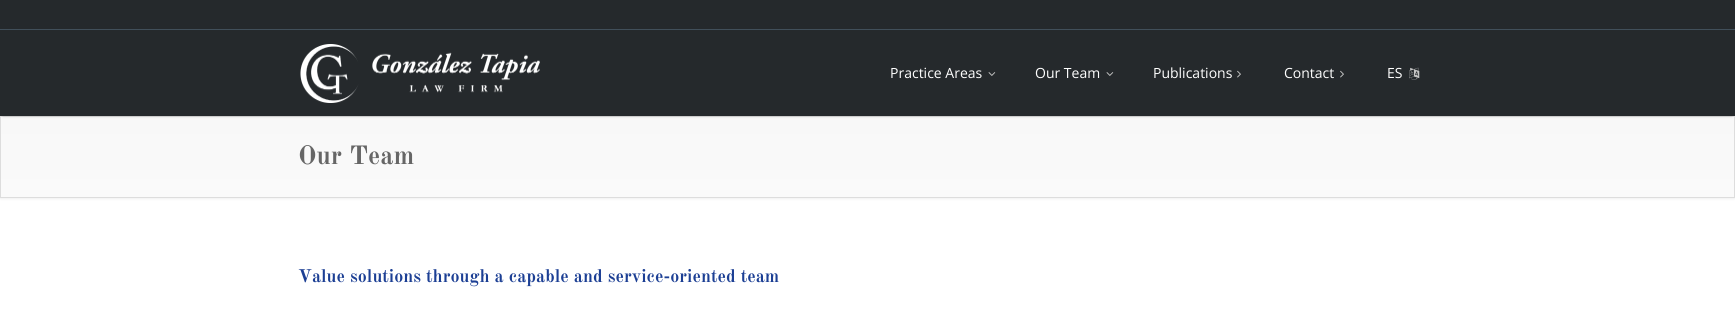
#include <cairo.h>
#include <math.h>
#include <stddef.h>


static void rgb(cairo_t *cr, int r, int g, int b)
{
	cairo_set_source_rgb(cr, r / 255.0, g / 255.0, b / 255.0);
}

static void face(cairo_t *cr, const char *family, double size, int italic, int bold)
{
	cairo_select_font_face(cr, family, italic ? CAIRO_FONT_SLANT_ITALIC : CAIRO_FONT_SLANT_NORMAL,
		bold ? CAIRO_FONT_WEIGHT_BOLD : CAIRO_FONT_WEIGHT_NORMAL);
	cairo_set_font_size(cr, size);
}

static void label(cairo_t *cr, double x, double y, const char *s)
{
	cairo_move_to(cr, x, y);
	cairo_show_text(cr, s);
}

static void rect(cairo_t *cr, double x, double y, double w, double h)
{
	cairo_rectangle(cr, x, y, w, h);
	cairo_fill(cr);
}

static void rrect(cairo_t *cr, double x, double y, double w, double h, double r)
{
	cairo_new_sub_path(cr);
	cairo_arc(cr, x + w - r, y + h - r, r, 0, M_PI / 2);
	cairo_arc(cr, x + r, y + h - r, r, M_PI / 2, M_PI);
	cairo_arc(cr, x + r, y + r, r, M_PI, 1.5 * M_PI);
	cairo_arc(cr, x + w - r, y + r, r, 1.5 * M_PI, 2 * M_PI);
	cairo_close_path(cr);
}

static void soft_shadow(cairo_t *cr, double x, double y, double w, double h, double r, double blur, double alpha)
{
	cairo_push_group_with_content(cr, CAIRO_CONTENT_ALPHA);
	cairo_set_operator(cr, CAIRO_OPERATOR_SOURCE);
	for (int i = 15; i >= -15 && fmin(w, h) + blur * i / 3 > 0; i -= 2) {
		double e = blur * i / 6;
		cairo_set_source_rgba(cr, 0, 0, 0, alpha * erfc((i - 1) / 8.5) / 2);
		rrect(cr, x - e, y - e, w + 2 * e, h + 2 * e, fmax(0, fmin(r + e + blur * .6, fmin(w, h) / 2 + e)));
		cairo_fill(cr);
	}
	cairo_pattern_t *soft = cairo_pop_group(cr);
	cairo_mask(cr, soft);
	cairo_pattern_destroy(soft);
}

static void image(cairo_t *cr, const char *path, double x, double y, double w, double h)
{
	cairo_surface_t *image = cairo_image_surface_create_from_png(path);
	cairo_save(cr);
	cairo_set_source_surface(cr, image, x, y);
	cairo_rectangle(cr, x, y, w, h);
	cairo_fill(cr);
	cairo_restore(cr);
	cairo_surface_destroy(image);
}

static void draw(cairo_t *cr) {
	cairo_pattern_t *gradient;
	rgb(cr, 255, 255, 255);
	cairo_paint(cr);
	rgb(cr, 37, 41, 44);
	rect(cr, 0, 0, 1735, 29);
	rgb(cr, 65, 79, 90);
	rect(cr, 0, 29, 1735, 1);
	rgb(cr, 0, 0, 0);
	soft_shadow(cr, 0, 116, 1735, 82, 0, 1.5, 0.1);
	gradient = cairo_pattern_create_linear(868, 117, 868, 197);
	cairo_pattern_add_color_stop_rgba(gradient, 0, 0.973, 0.973, 0.973, 1);
	cairo_pattern_add_color_stop_rgba(gradient, 1, 0.98, 0.98, 0.98, 1);
	cairo_set_source(cr, gradient);
	cairo_pattern_destroy(gradient);
	rect(cr, 1, 117, 1733, 80);
	cairo_rectangle(cr, 0.5, 116.5, 1734, 81);
	rgb(cr, 221, 221, 221);
	cairo_set_line_width(cr, 1);
	cairo_stroke(cr);
	rgb(cr, 0, 0, 0);
	soft_shadow(cr, 3, 36, 1729, 80, 0, 1.5, 0.2);
	rgb(cr, 37, 41, 44);
	rect(cr, 0, 30, 1735, 86);
	image(cr, "image0.png", 300, 44, 240, 59);
	face(cr, "Open Sans", 14, 0, 0);
	rgb(cr, 255, 255, 255);
	label(cr, 890, 78, "Practice Areas");
	image(cr, "image1.png", 988, 72, 8, 4);
	label(cr, 1035, 78, "Our Team");
	image(cr, "image1.png", 1106, 72, 8, 4);
	label(cr, 1153, 78, "Publications");
	image(cr, "image2.png", 1237, 70, 4, 8);
	label(cr, 1284, 78, "Contact");
	image(cr, "image2.png", 1340, 70, 4, 8);
	label(cr, 1387, 78, "ES");
	image(cr, "image3.png", 1409, 67, 11, 13);
	face(cr, "Old Standard TT", 26, 0, 1);
	rgb(cr, 102, 102, 102);
	label(cr, 298, 164, "Our Team");
	face(cr, "Old Standard TT", 18, 0, 1);
	rgb(cr, 28, 63, 148);
	label(cr, 298, 282, "Value solutions through a capable and service-oriented team");
}

int main(void) {
	cairo_surface_t *surface = cairo_image_surface_create(CAIRO_FORMAT_RGB24, 1735, 312);
	cairo_t *cr = cairo_create(surface);
	cairo_font_options_t *options = cairo_font_options_create();
	cairo_font_options_set_hint_metrics(options, CAIRO_HINT_METRICS_OFF);
	cairo_font_options_set_hint_style(options, CAIRO_HINT_STYLE_NONE);
	cairo_set_font_options(cr, options);
	cairo_set_miter_limit(cr, 4);
	draw(cr);
	cairo_surface_write_to_png(surface, "render.png");
	cairo_font_options_destroy(options);
	cairo_destroy(cr);
	cairo_surface_destroy(surface);
	return 0;
}
